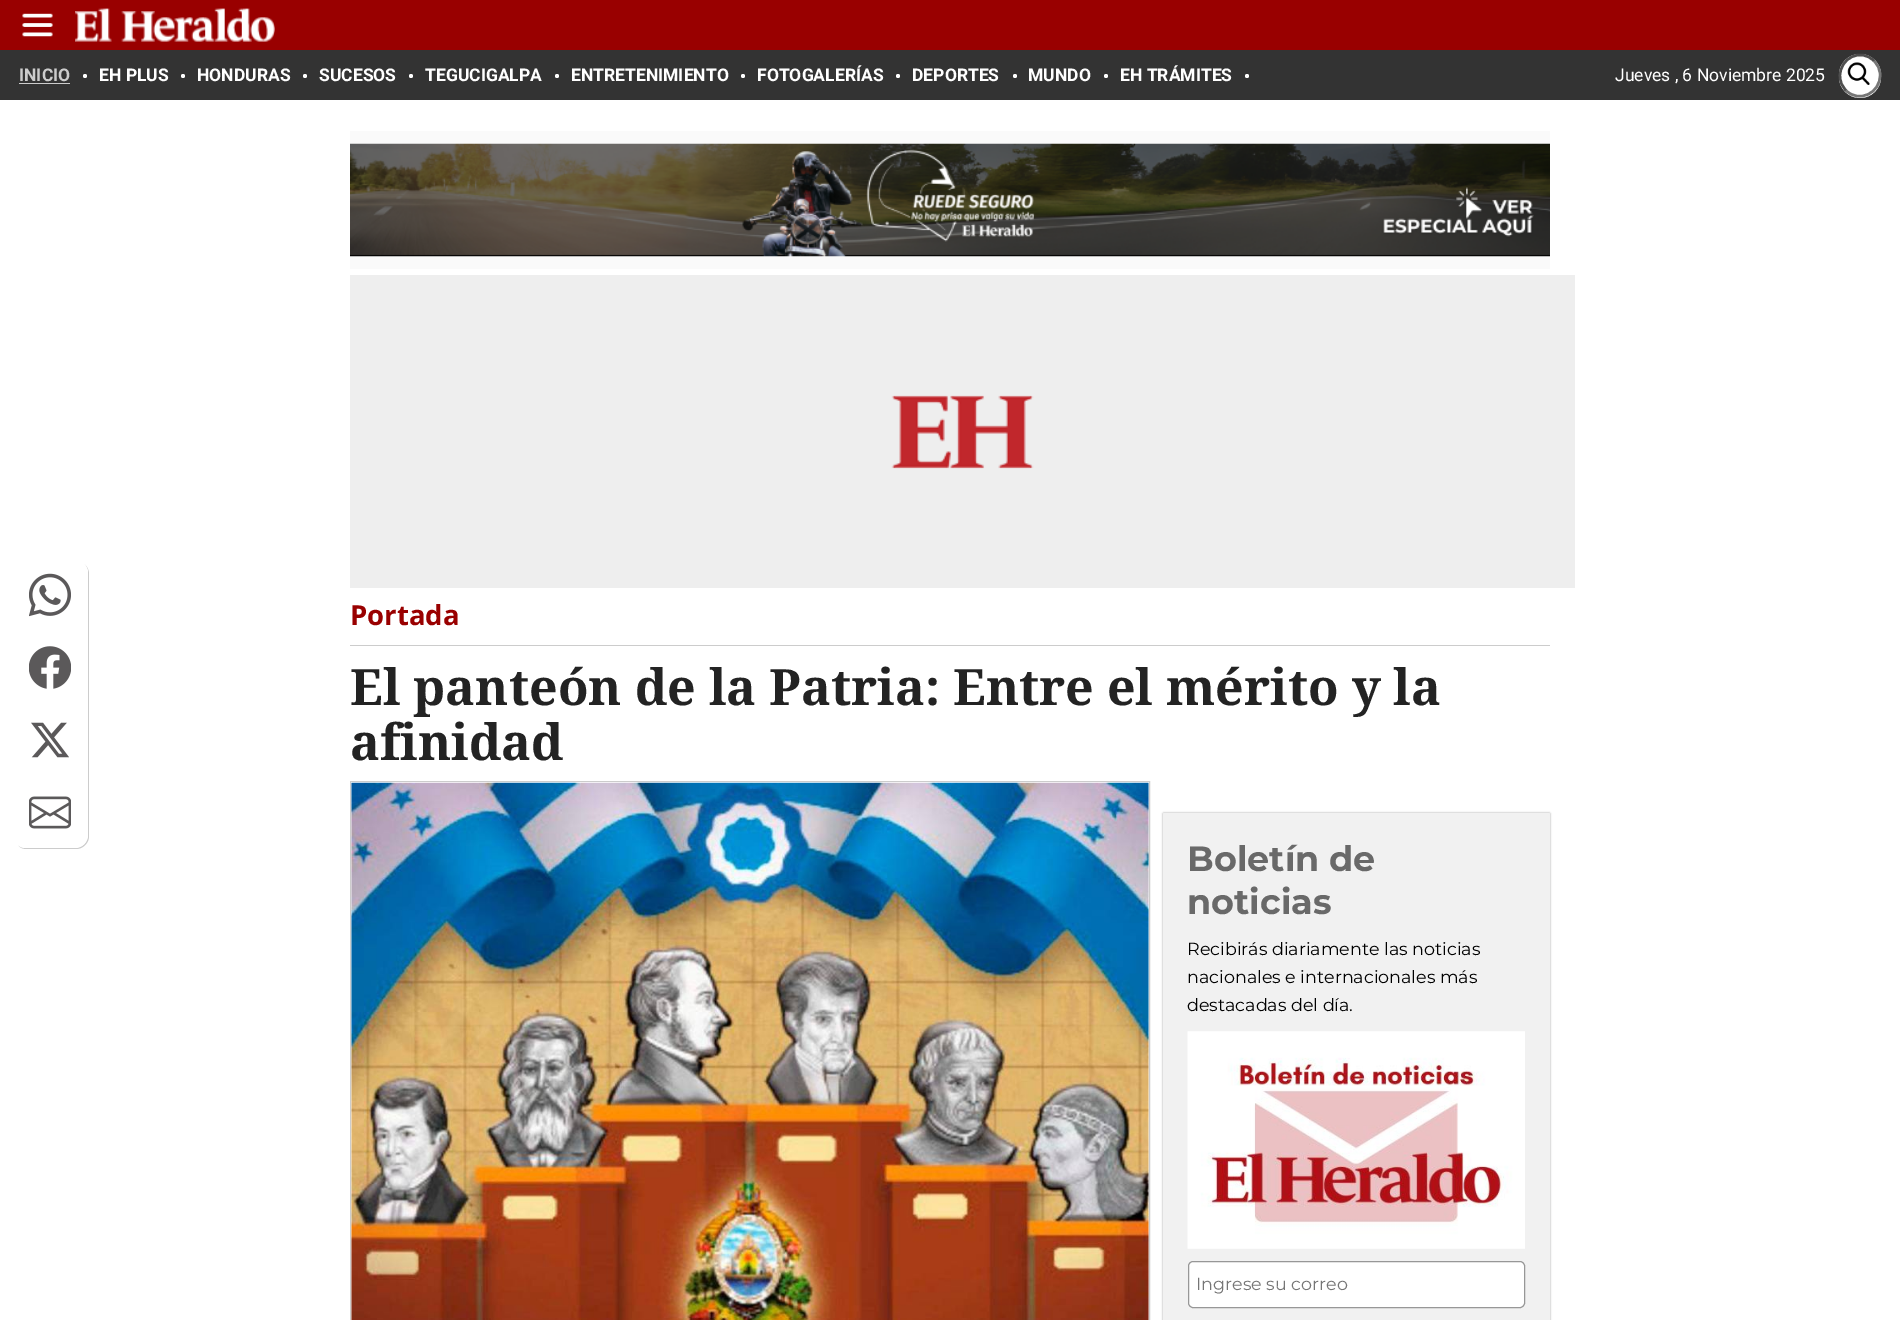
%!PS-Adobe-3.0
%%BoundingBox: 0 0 1900 1320
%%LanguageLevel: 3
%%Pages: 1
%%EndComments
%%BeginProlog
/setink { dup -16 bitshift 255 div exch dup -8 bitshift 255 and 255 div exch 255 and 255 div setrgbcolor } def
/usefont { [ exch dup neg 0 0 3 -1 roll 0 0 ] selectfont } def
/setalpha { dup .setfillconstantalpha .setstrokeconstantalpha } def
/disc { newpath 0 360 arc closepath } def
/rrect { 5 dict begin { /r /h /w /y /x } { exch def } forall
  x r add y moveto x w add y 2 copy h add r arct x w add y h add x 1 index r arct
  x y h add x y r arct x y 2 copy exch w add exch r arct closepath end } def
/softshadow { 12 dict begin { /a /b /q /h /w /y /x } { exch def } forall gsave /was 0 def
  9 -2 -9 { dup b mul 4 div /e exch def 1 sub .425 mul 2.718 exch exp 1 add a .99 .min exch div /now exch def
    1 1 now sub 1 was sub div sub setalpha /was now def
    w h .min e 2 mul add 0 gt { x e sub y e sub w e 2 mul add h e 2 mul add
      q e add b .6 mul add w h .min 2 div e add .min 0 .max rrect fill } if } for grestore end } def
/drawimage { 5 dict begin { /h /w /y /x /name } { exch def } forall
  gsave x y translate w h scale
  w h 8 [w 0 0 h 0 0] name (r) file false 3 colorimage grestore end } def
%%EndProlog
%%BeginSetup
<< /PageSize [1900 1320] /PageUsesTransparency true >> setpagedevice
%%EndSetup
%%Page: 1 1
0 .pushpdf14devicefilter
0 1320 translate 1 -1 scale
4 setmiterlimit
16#FFFFFF setink
0 0 1900 1320 rectfill
16#333333 setink
0 50 1900 50 rectfill
16#FFFFFF setink
1839 54 42 44 21 rrect fill
(img3.raw) 1847 62 23 23 drawimage
16#767676 setink
2.5 setlinewidth
1874 61 moveto 1878 64.5 1880 69.5 1880 75 curveto 1880.5 93 1859 103.5 1846 90.5 curveto stroke
16#4F4F4F setink
1846 90.5 moveto 1842 86.5 1840 81.5 1840 76.5 curveto 1839.5 58 1861 47.5 1874 61 curveto stroke
16#333333 setink
0 1 1900 50 0 3 1 softshadow
16#990000 setink
0 0 1900 50 rectfill
(img1.raw) 22 13 31 24 drawimage
(img2.raw) 75 8 200 34 drawimage
/Roboto-Bold 17.5 usefont
16#CCCCCC setink
19 81 moveto (INICIO) show
19 83 51 1 rectfill
16#FFFFFF setink
85 76 2 disc fill
99 81 moveto (EH PLUS) show
183 76 2 disc fill
197 81 moveto (HONDURAS) show
305 76 2 disc fill
319 81 moveto (SUCESOS) show
411 76 2 disc fill
425 81 moveto (TEGUCIGALPA) show
557 76 2 disc fill
571 81 moveto (ENTRETENIMIENTO) show
743 76 2 disc fill
757 81 moveto (FOTOGALERÍAS) show
898 76 2 disc fill
912 81 moveto (DEPORTES) show
1015 76 2 disc fill
1028 81 moveto (MUNDO) show
1106 76 2 disc fill
1120 81 moveto (EH TRÁMITES) show
1247 76 2 disc fill
/Roboto-Regular 17.5 usefont
1615 81 moveto (Jueves , 6 Noviembre 2025) show
16#FAFAFA setink
350 131 1200 138 rectfill
(img4.raw) 350 143 1200 114 drawimage
16#EEEEEE setink
350 275 1225 313 rectfill
(img5.raw) 891 395 143 74 drawimage
16#CCCCCC setink
350 645 1200 1 rectfill
/NotoSans-Bold 27.5 usefont
16#990000 setink
350 625 moveto (Portada) show
/NotoSerif-Bold 50 usefont
16#232323 setink
350 705 moveto (El panteón de la Patria: Entre el mérito y la) show
350 760 moveto (afinidad) show
16#CCCCCC setink
18 845 moveto 20 848 23 849 27 849 curveto 76 849 lineto 83 849 89 843 89 836 curveto 89 574 lineto 89 570 87 566 84 564 curveto 86 566 88 569 88 572 curveto 88 835 lineto 88 842 82 848 75 848 curveto 25 848 lineto 22 848 20 847 18 845 curveto closepath fill
16#FFFFFF setink
13 560 75 288 13 rrect fill
(img6.raw) 29 573 42 44 drawimage
(img7.raw) 29 646 42 43 drawimage
(img8.raw) 31 722 38 36 drawimage
(img9.raw) 29 796 42 33 drawimage
16#CCCCCC setink
1 setlinewidth
350.5 781.5 799 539 rectstroke
(img10.raw) 351 782 798 538 drawimage
16#999999 setink
1163 813 387 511 1 1 1 softshadow
16#F1F1F1 setink
1163 813 387 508 1 rrect fill
/Montserrat-Thin 35 usefont
16#696969 setink
1187 871 moveto (Boletín de) show
1187 914 moveto (noticias) show
/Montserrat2-Thin 17.5 usefont
16#000000 setink
[
    [(Recibirás diariamente las noticias) 1187 955]
    [(nacionales e internacionales más) 1187 983]
    [(destacadas del día.) 1187 1011]
] { aload pop moveto show } forall
(img11.raw) 1187 1031 338 218 drawimage
16#FFFFFF setink
1188.5 1261.5 336 46 4.5 rrect gsave fill grestore
16#979797 setink
stroke
16#757575 setink
1196 1290 moveto (Ingrese su correo) show
.poppdf14devicefilter showpage
%%EOF
